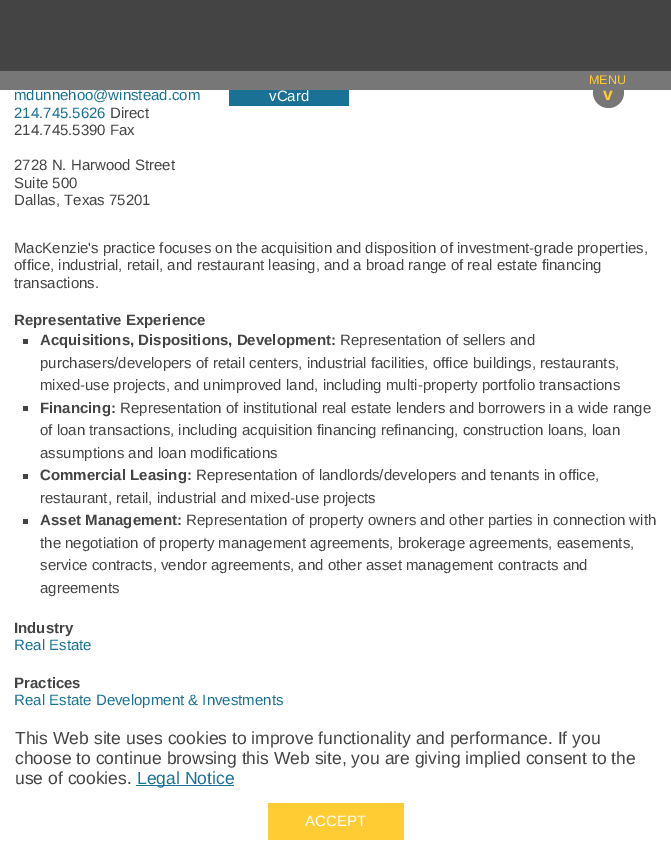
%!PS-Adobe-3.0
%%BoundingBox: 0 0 671 854
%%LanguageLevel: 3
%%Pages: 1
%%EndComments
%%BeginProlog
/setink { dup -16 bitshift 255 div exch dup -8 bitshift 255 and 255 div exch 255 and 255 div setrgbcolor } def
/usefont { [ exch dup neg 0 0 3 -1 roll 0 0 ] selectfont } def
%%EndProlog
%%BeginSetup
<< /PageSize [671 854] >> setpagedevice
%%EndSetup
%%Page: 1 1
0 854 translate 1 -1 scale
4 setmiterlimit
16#FFFFFF setink
0 0 671 854 rectfill
16#444444 setink
0 0 671 71 rectfill
/LiberationSans-Regular 15 usefont
16#197295 setink
14 100 moveto (mdunnehoo@winstead.com) show
16#777777 setink
0 71 671 19 rectfill
/LiberationSans-Regular 12.5 usefont
16#FFCC33 setink
589 84 moveto (MENU) show
16#777777 setink
593 90 moveto 624 90 lineto 624 92.5 lineto 624 101 617 108 608.5 108 curveto 600 108 593 101 593 92.5 curveto closepath fill
/LiberationSans-Bold 17.5 usefont
16#FFCC33 setink
603 100 moveto (v) show
/LiberationSans-Regular 15 usefont
16#197295 setink
14 118 moveto (214.745.5626) show
16#444444 setink
110 118 moveto (Direct) show
14 135 moveto (214.745.5390 Fax) show
16#197295 setink
229 90 120 16 rectfill
16#FFFFFF setink
269 101 moveto (vCard) show
16#444444 setink
[
    [(2728 N. Harwood Street) 14 170]
    [(Suite 500) 14 188]
    [(Dallas, Texas 75201) 14 205]
    [(MacKenzie's practice focuses on the acquisition and disposition of investment-grade properties,) 14 253]
    [(office, industrial, retail, and restaurant leasing, and a broad range of real estate financing) 14 270]
    [(transactions.) 14 288]
] { aload pop moveto show } forall
/LiberationSans-Bold 15 usefont
14 325 moveto (Representative Experience) show
23 339 5 5 rectfill
40 345 moveto (Acquisitions, Dispositions, Development:) show
/LiberationSans-Regular 15 usefont
[
    [(Representation of sellers and) 340 345]
    [(purchasers/developers of retail centers, industrial facilities, office buildings, restaurants,) 40 368]
    [(mixed-use projects, and unimproved land, including multi-property portfolio transactions) 40 390]
] { aload pop moveto show } forall
23 406 5 5 rectfill
/LiberationSans-Bold 15 usefont
40 413 moveto (Financing:) show
/LiberationSans-Regular 15 usefont
[
    [(Representation of institutional real estate lenders and borrowers in a wide range) 120 413]
    [(of loan transactions, including acquisition financing refinancing, construction loans, loan) 40 435]
    [(assumptions and loan modifications) 40 458]
] { aload pop moveto show } forall
23 474 5 5 rectfill
/LiberationSans-Bold 15 usefont
40 480 moveto (Commercial Leasing:) show
/LiberationSans-Regular 15 usefont
196 480 moveto (Representation of landlords/developers and tenants in office,) show
40 503 moveto (restaurant, retail, industrial and mixed-use projects) show
23 519 5 5 rectfill
/LiberationSans-Bold 15 usefont
40 525 moveto (Asset Management:) show
/LiberationSans-Regular 15 usefont
[
    [(Representation of property owners and other parties in connection with) 186 525]
    [(the negotiation of property management agreements, brokerage agreements, easements,) 40 548]
    [(service contracts, vendor agreements, and other asset management contracts and) 40 570]
    [(agreements) 40 593]
] { aload pop moveto show } forall
/LiberationSans-Bold 15 usefont
14 633 moveto (Industry) show
/LiberationSans-Regular 15 usefont
16#197295 setink
14 650 moveto (Real Estate) show
/LiberationSans-Bold 15 usefont
16#444444 setink
14 688 moveto (Practices) show
/LiberationSans-Regular 15 usefont
16#197295 setink
14 705 moveto (Real Estate Development & Investments) show
/LiberationSans-Regular 17.5 usefont
16#444444 setink
[
    [(This Web site uses cookies to improve functionality and performance. If you) 15 744]
    [(choose to continue browsing this Web site, you are giving implied consent to the) 15 764]
    [(use of cookies.) 15 784]
] { aload pop moveto show } forall
16#197295 setink
136 785 98 1 rectfill
137 784 moveto (Legal Notice) show
16#FFCC33 setink
268 803 136 37 rectfill
/LiberationSans-Regular 15 usefont
16#FFFFFF setink
305 826 moveto (ACCEPT) show
showpage
%%EOF
